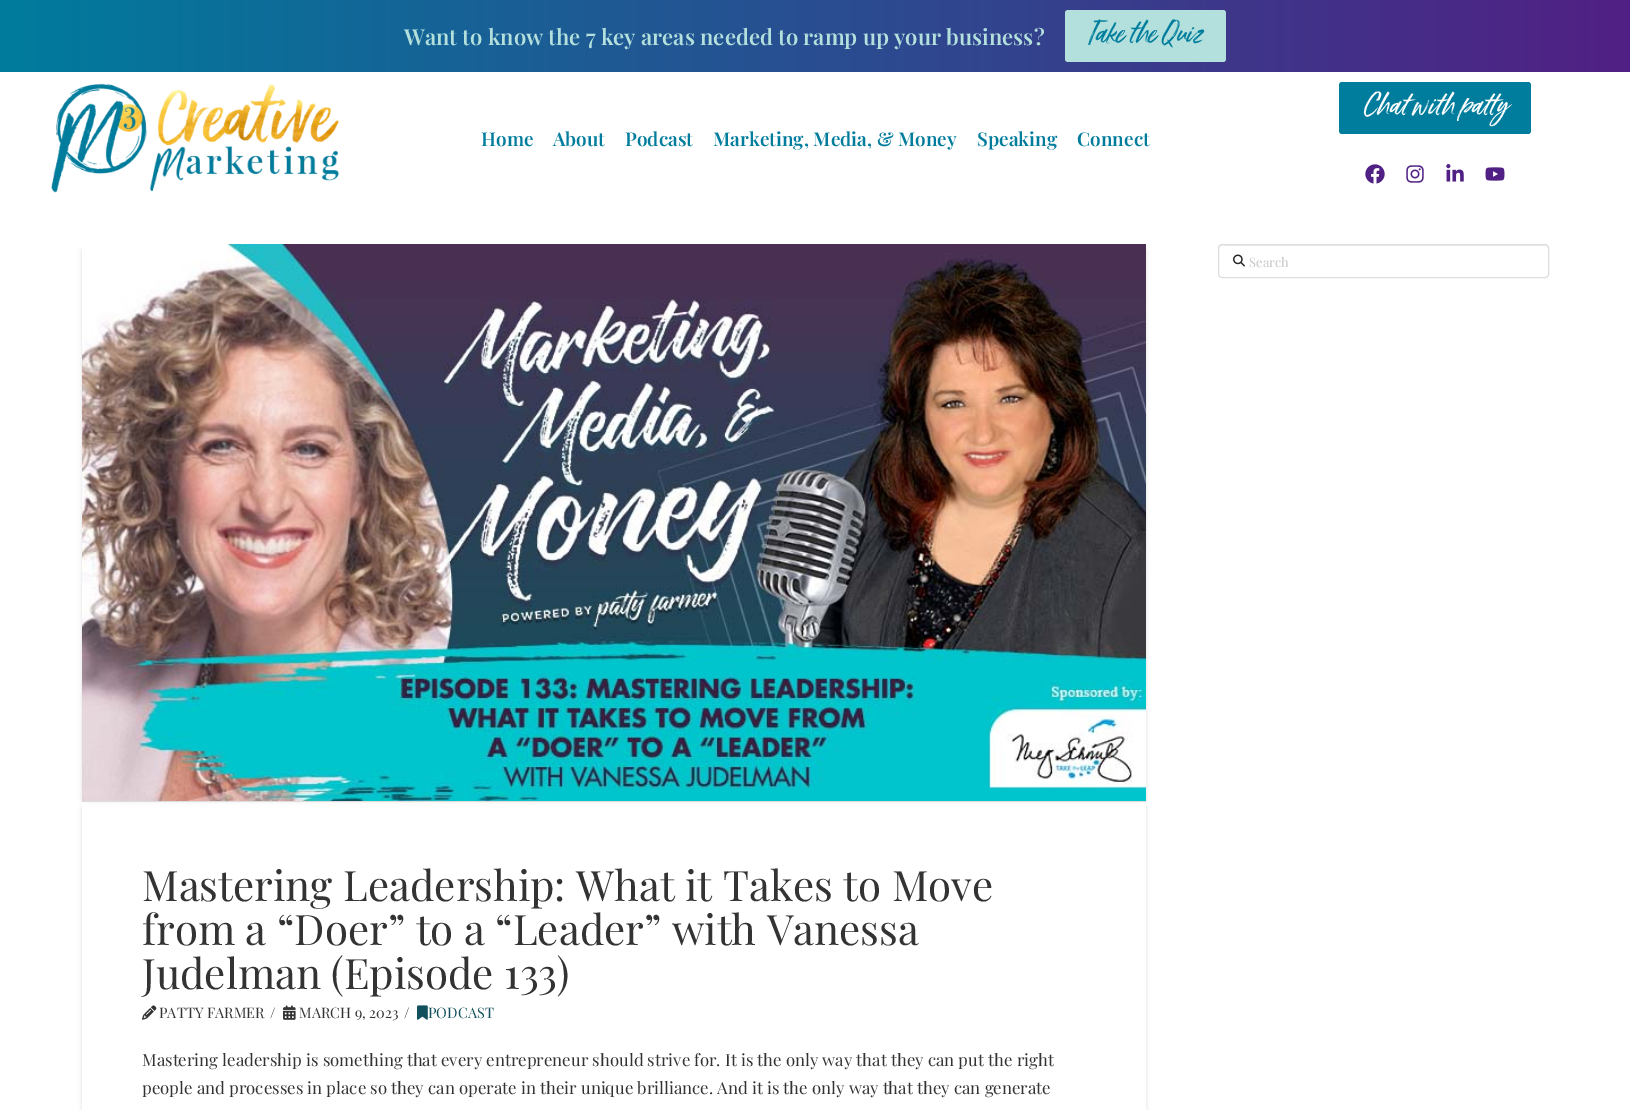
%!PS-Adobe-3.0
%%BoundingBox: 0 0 1630 1110
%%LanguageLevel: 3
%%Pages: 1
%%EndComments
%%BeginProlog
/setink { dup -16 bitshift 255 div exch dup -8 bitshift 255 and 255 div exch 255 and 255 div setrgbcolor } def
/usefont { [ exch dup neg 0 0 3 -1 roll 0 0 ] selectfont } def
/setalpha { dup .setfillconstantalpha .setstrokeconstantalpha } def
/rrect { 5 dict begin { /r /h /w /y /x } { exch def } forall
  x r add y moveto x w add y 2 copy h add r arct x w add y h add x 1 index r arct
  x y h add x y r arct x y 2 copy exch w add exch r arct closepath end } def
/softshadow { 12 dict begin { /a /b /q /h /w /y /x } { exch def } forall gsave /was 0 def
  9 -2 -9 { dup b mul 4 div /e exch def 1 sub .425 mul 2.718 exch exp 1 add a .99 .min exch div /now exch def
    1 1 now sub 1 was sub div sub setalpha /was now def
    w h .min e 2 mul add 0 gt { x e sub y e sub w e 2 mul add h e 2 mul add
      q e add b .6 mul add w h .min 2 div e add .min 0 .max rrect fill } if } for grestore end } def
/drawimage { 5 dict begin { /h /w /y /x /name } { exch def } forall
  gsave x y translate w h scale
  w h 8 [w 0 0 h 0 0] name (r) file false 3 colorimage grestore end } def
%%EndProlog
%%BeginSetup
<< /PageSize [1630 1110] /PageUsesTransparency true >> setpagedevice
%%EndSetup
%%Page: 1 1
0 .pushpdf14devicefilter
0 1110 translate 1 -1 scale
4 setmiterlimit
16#FFFFFF setink
0 0 1630 1110 rectfill
gsave 0 0 moveto 1630 0 lineto 1630 72 lineto 0 72 lineto closepath clip newpath
<< /ShadingType 2 /ColorSpace /DeviceRGB /Coords [0 36 1630 36] /Extend [true true] /Function << /FunctionType 2 /Domain [0 1] /C0 [0 0.486 0.616] /C1 [0.318 0.125 0.518] /N 1 >> >> shfill grestore
/PlayfairDisplay-SemiBold 22 usefont
16#B3E0DC setink
404 45 moveto (Want to know the 7 key areas needed to ramp up your business?) show
1065 10 161 52 3 rrect fill
/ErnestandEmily-Italic 28 usefont
16#007C9D setink
1089 41 moveto (Take the Quiz) show
(img1.raw) 51 83 288 110 drawimage
1339 82 192 52 3 rrect fill
16#FFFFFF setink
1363 113 moveto (Chat with patty) show
(img2.raw) 1365 164 20 20 drawimage
(img3.raw) 1406 165 18 18 drawimage
(img4.raw) 1446 164 18 18 drawimage
(img5.raw) 1485 167 20 14 drawimage
/PlayfairDisplay-SemiBold 19 usefont
16#007C9D setink
[
    [(Home) 481 146]
    [(About) 553 146]
    [(Podcast) 625 146]
    [(Marketing, Media, & Money) 713 146]
    [(Speaking) 977 146]
    [(Connect) 1077 146]
] { aload pop moveto show } forall
16#ECECEC setink
1222 246 moveto 1545 246 lineto 1547 246 1548 247 1548 249 curveto 1548 247 1547 245 1545 245 curveto 1222 245 lineto 1220 245 1219 247 1219 249 curveto 1219 247 1220 246 1222 246 curveto closepath fill
16#DDDDDD setink
1218.5 244.5 330 33 3.5 rrect stroke
(img6.raw) 1233 254 12 13 drawimage
/PlayfairDisplay-Regular 13 usefont
16#C5C5C5 setink
1249 267 moveto (Search) show
16#000000 setink
82 250 1056 550 0 2 0.13 softshadow
90 250 1056 550 0 2 0.13 softshadow
gsave
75 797 moveto 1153 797 lineto 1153 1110 lineto 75 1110 lineto closepath 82 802 moveto 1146 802 lineto 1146 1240 lineto 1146 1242 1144 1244 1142 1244 curveto 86 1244 lineto 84 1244 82 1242 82 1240 curveto closepath eoclip newpath
82 804 1064 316 4 2 0.13 softshadow
grestore
16#DDDDDD setink
82 801 1064 1 rectfill
(img7.raw) 82 244 1064 557 drawimage
/PlayfairDisplay-Regular 42 usefont
16#333333 setink
[
    [(Mastering Leadership: What it Takes to Move) 142 901]
    [(from a “Doer” to a “Leader” with Vanessa) 142 945]
    [(Judelman \(Episode 133\)) 142 989]
] { aload pop moveto show } forall
(img8.raw) 142 1005 15 15 drawimage
/PlayfairDisplay-Regular 14.5 usefont
159 1018 moveto (PATTY FARMER) show
270 1018 moveto (/) show
(img9.raw) 283 1005 13 15 drawimage
299 1018 moveto (MARCH 9, 2023) show
404 1018 moveto (/) show
(img10.raw) 417 1005 11 15 drawimage
16#11505C setink
428 1018 moveto (PODCAST) show
/PlayfairDisplay-Regular 16.8 usefont
16#333333 setink
142 1066 moveto (Mastering leadership is something that every entrepreneur should strive for. It is the only way that they can put the right) show
142 1094 moveto (people and processes in place so they can operate in their unique brilliance. And it is the only way that they can generate) show
.poppdf14devicefilter showpage
%%EOF
